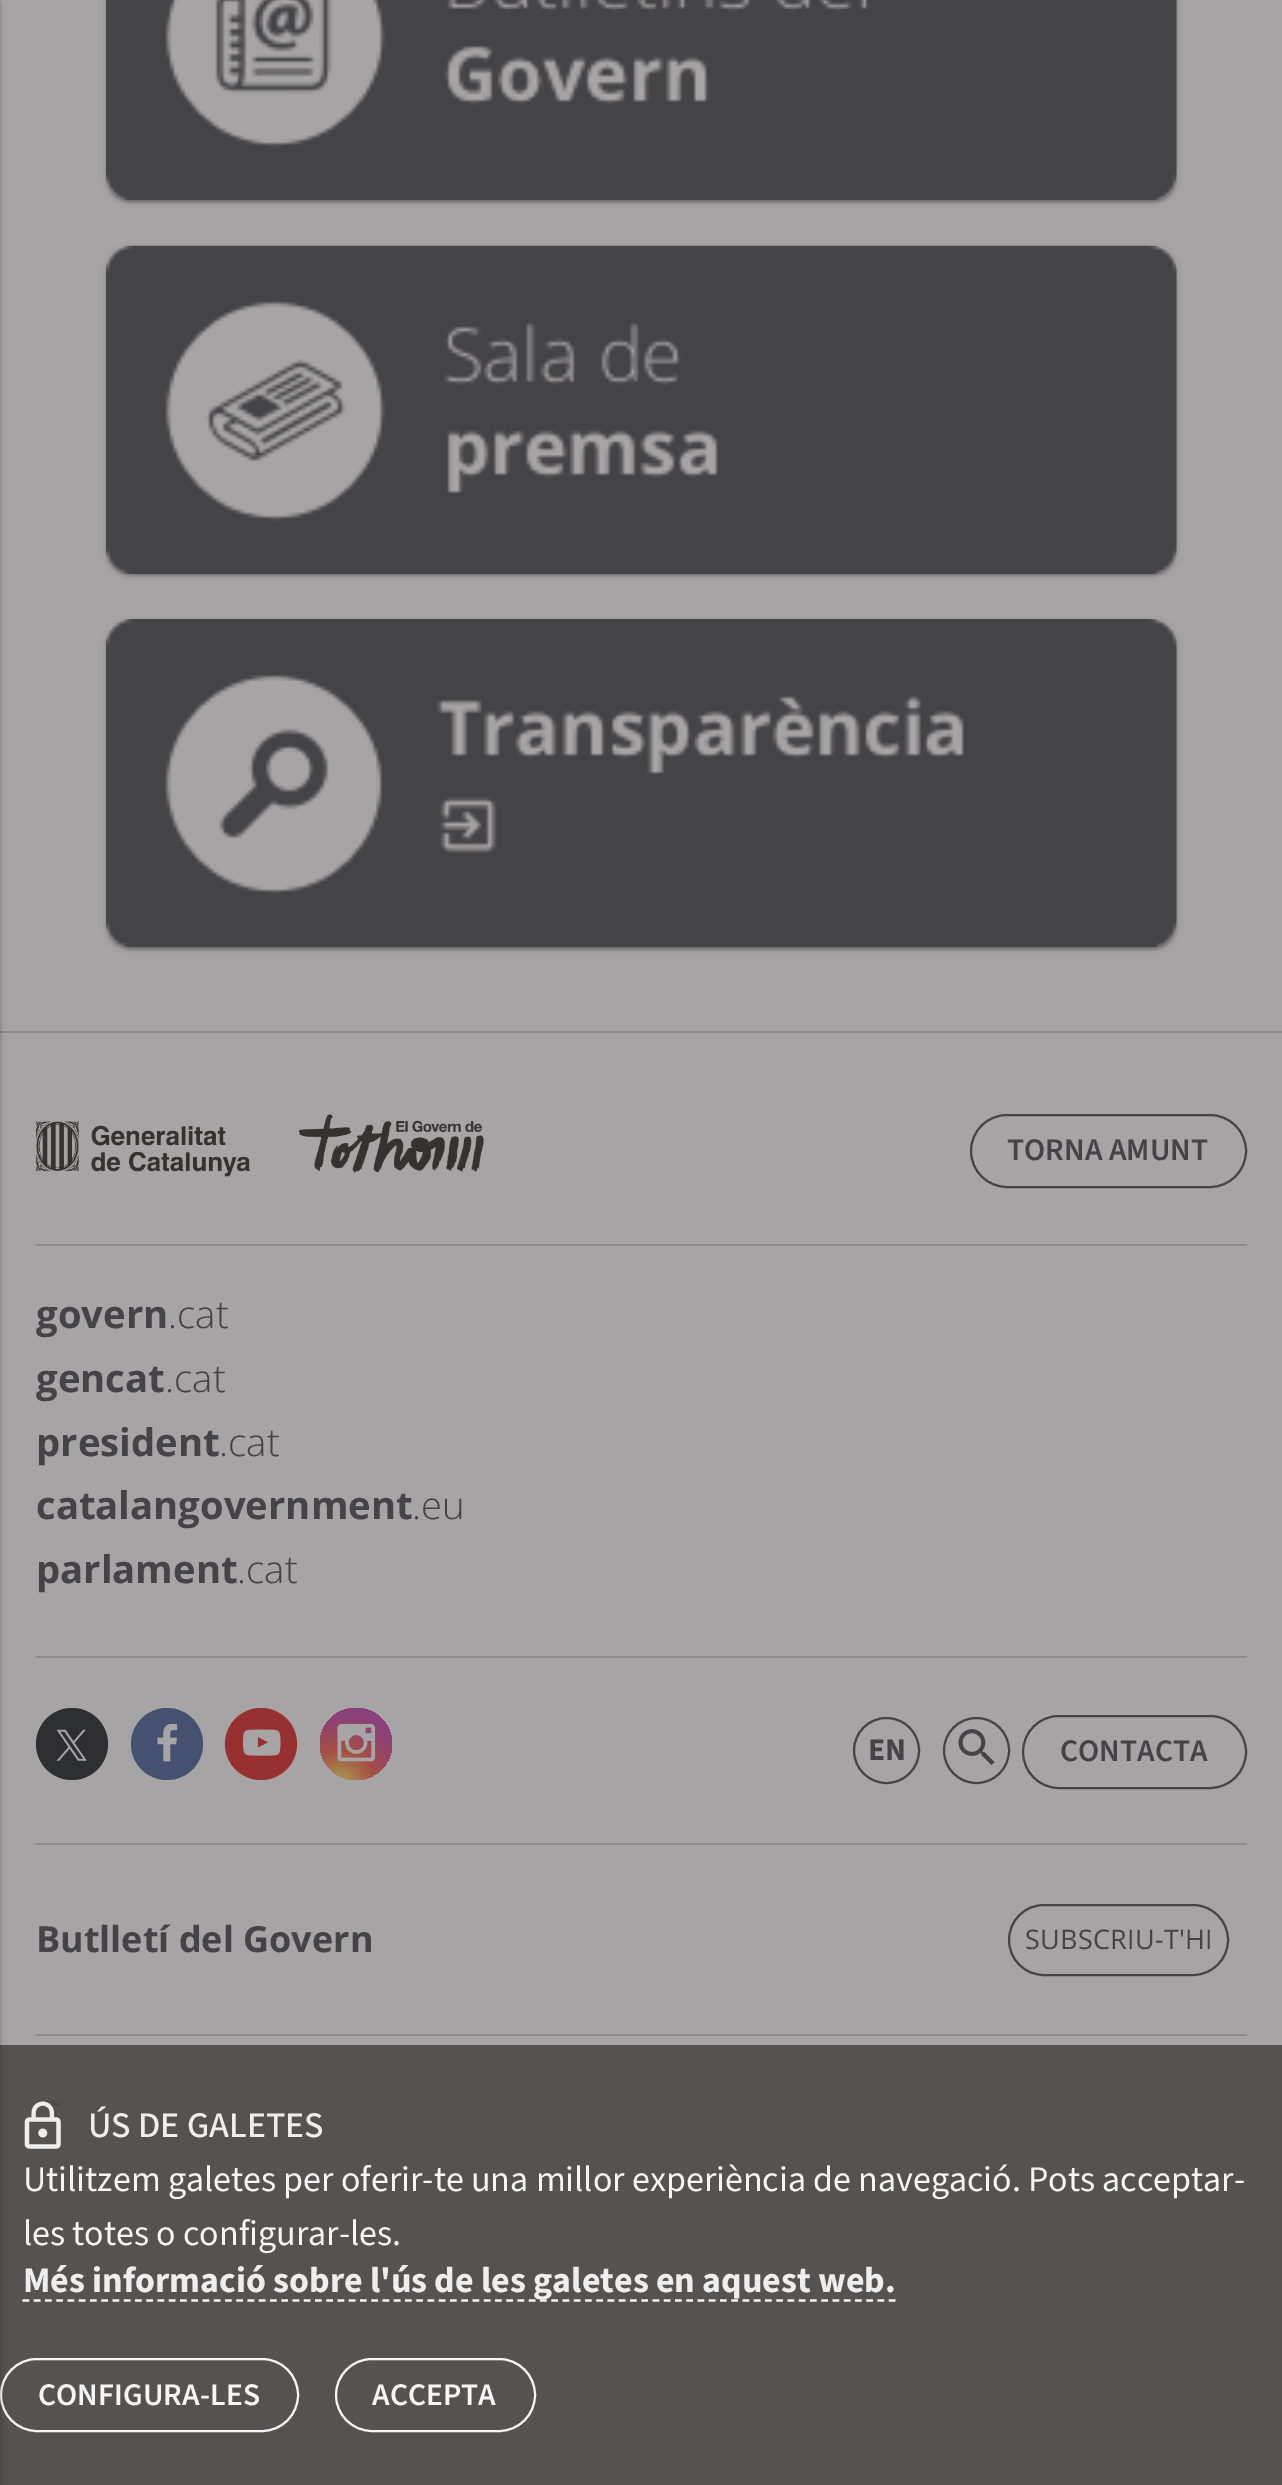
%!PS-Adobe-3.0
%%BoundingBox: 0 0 1282 2485
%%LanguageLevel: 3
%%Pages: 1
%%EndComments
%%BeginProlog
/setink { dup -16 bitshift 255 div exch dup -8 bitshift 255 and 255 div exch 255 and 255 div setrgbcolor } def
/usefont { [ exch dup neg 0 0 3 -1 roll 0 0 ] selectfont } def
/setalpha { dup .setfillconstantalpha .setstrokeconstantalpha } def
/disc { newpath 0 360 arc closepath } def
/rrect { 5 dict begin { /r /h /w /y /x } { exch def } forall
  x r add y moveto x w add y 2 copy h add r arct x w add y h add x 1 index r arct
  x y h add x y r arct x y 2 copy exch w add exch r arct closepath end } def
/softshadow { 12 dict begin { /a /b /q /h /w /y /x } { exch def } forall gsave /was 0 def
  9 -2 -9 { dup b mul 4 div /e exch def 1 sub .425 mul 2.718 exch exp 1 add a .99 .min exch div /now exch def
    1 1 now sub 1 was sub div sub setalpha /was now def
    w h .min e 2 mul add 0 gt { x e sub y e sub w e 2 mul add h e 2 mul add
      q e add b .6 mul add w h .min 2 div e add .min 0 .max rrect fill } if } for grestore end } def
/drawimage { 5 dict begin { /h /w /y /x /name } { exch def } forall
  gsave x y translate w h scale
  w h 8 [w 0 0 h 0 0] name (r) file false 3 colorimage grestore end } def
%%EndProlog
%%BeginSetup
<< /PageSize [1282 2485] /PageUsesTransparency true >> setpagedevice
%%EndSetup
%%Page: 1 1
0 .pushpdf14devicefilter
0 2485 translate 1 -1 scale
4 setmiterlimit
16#A6A4A4 setink
0 0 1282 2485 rectfill
[
    [0 2045 1282 439 16#555252]
    [0 1031 1282 2 16#8D8C8C]
    [0 2484 1282 1 16#535050]
] { aload pop setink rectfill } forall
16#F6F6F6 setink
2 setlinewidth
1 2359 297 72 36 rrect stroke
16#000000 setink
-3 2 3 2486 0 1 0.14 softshadow
-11 2 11 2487 0 3.5 0.2 softshadow
gsave
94 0 moveto 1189 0 lineto 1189 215 lineto 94 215 lineto closepath 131 -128 moveto 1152 -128 lineto 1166 -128 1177 -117 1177 -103 curveto 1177 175 lineto 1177 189 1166 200 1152 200 curveto 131 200 lineto 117 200 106 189 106 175 curveto 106 -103 lineto 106 -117 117 -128 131 -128 curveto closepath eoclip newpath
16#262525 setink
106 -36 1071 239 25 3.5 0.2 softshadow
grestore
gsave
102 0 moveto 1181 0 lineto 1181 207 lineto 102 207 lineto closepath 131 -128 moveto 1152 -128 lineto 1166 -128 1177 -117 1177 -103 curveto 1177 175 lineto 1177 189 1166 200 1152 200 curveto 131 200 lineto 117 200 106 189 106 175 curveto 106 -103 lineto 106 -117 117 -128 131 -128 curveto closepath eoclip newpath
16#262525 setink
106 -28 1071 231 25 1 0.14 softshadow
grestore
gsave
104 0 moveto 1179 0 lineto 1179 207 lineto 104 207 lineto closepath 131 -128 moveto 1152 -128 lineto 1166 -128 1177 -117 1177 -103 curveto 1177 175 lineto 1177 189 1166 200 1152 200 curveto 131 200 lineto 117 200 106 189 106 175 curveto 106 -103 lineto 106 -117 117 -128 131 -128 curveto closepath eoclip newpath
16#262525 setink
108 -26 1067 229 23 1 0.12 softshadow
grestore
(img1.raw) 105 0 1072 201 drawimage
gsave
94 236 moveto 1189 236 lineto 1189 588 lineto 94 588 lineto closepath 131 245 moveto 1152 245 lineto 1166 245 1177 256 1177 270 curveto 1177 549 lineto 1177 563 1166 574 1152 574 curveto 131 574 lineto 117 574 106 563 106 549 curveto 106 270 lineto 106 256 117 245 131 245 curveto closepath eoclip newpath
16#262525 setink
106 248 1071 328 25 3.5 0.2 softshadow
grestore
gsave
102 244 moveto 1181 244 lineto 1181 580 lineto 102 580 lineto closepath 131 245 moveto 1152 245 lineto 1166 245 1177 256 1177 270 curveto 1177 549 lineto 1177 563 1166 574 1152 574 curveto 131 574 lineto 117 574 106 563 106 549 curveto 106 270 lineto 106 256 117 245 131 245 curveto closepath eoclip newpath
16#262525 setink
106 248 1071 328 25 1 0.14 softshadow
grestore
gsave
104 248 moveto 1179 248 lineto 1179 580 lineto 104 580 lineto closepath 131 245 moveto 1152 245 lineto 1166 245 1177 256 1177 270 curveto 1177 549 lineto 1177 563 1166 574 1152 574 curveto 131 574 lineto 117 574 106 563 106 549 curveto 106 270 lineto 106 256 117 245 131 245 curveto closepath eoclip newpath
16#262525 setink
108 252 1067 324 23 1 0.12 softshadow
grestore
(img2.raw) 105 245 1072 329 drawimage
gsave
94 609 moveto 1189 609 lineto 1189 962 lineto 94 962 lineto closepath 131 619 moveto 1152 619 lineto 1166 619 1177 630 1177 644 curveto 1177 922 lineto 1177 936 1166 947 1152 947 curveto 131 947 lineto 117 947 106 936 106 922 curveto 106 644 lineto 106 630 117 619 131 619 curveto closepath eoclip newpath
16#262525 setink
106 621 1071 329 25 3.5 0.2 softshadow
grestore
gsave
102 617 moveto 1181 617 lineto 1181 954 lineto 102 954 lineto closepath 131 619 moveto 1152 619 lineto 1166 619 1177 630 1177 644 curveto 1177 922 lineto 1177 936 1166 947 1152 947 curveto 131 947 lineto 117 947 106 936 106 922 curveto 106 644 lineto 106 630 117 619 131 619 curveto closepath eoclip newpath
16#262525 setink
106 621 1071 329 25 1 0.14 softshadow
grestore
gsave
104 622 moveto 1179 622 lineto 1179 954 lineto 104 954 lineto closepath 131 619 moveto 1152 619 lineto 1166 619 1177 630 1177 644 curveto 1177 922 lineto 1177 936 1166 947 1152 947 curveto 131 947 lineto 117 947 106 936 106 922 curveto 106 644 lineto 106 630 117 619 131 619 curveto closepath eoclip newpath
16#262525 setink
108 626 1067 324 23 1 0.12 softshadow
grestore
(img3.raw) 105 619 1072 329 drawimage
16#8D8C8C setink
36 1244 1211 2 rectfill
(img4.raw) 36 1114 448 63 drawimage
16#444345 setink
971 1115 275 72 36 rrect stroke
/SourceSans3-SemiBold 31.5 usefont
1007 1160 moveto (TORNA AMUNT) show
16#8D8C8C setink
36 1656 1211 2 rectfill
/OpenSans-Bold 38.25 usefont
16#444345 setink
36 1328 moveto (govern) show
/OpenSans-Light 38.25 usefont
168 1328 moveto (.cat) show
/OpenSans-Bold 38.25 usefont
36 1392 moveto (gencat) show
/OpenSans-Light 38.25 usefont
165 1392 moveto (.cat) show
/OpenSans-Bold 38.25 usefont
36 1456 moveto (president) show
/OpenSans-Light 38.25 usefont
219 1456 moveto (.cat) show
/OpenSans-Bold 38.25 usefont
36 1519 moveto (catalangovernment) show
/OpenSans-Light 38.25 usefont
412 1519 moveto (.eu) show
/OpenSans-Bold 38.25 usefont
36 1583 moveto (parlament) show
/OpenSans-Light 38.25 usefont
237 1583 moveto (.cat) show
16#8D8C8C setink
36 1843 1211 2 rectfill
16#2E2F31 setink
72 1744 36 disc fill
(img5.raw) 56 1729 31 32 drawimage
16#445171 setink
167 1744 36 disc fill
(img6.raw) 157 1723 21 39 drawimage
16#973030 setink
261 1744 36 disc fill
(img7.raw) 243 1729 38 27 drawimage
gsave 356 1744 36 disc clip newpath 339 1786 translate 94 94 scale
<< /ShadingType 3 /ColorSpace /DeviceRGB /Coords [0 0 0 0 0 1] /Extend [true true] /Function << /FunctionType 3 /Domain [0 1] /Functions [<< /FunctionType 2 /Domain [0 1] /C0 [0.651 0.576 0.31] /C1 [0.651 0.576 0.31] /N 1 >> << /FunctionType 2 /Domain [0 1] /C0 [0.651 0.576 0.31] /C1 [0.651 0.31 0.267] /N 1 >> << /FunctionType 2 /Domain [0 1] /C0 [0.651 0.31 0.267] /C1 [0.541 0.251 0.478] /N 1 >> << /FunctionType 2 /Domain [0 1] /C0 [0.541 0.251 0.478] /C1 [0.541 0.251 0.478] /N 1 >>] /Bounds [0.08 0.38 0.76] /Encode [0 1 0 1 0 1 0 1] >> >> shfill grestore
(img8.raw) 337 1723 39 39 drawimage
16#444345 setink
886.5 1750.5 32.5 disc stroke
/SourceSans3-Bold 31.5 usefont
868 1760 moveto (EN) show
976.5 1750.5 32.5 disc stroke
(img9.raw) 958 1729 37 37 drawimage
1023 1716 223 72 36 rrect stroke
/SourceSans3-SemiBold 31.5 usefont
1060 1761 moveto (CONTACTA) show
16#8D8C8C setink
36 2034 1211 2 rectfill
/OpenSans-Bold 36 usefont
16#444345 setink
36 1952 moveto (Butlletí del Govern) show
1009 1905 219 70 35 rrect stroke
/OpenSans-Regular 27 usefont
1025 1949 moveto 0.25 0 (SUBSCRIU-T'HI) ashow
(img10.raw) 24 2101 37 48 drawimage
/SourceSans3-Medium 36 usefont
16#EEEEEE setink
88 2137 moveto (ÚS DE GALETES) show
/SourceSans3-Regular 36 usefont
16#F6F6F6 setink
23 2191 moveto (Utilitzem galetes per oferir-te una millor experiència de navegació. Pots acceptar-) show
23 2245 moveto (les totes o configurar-les.) show
2.2 setlinewidth
[6.75 4.5] 0 setdash
22.5 2300.5 moveto 895.5 2300.5 lineto stroke
/SourceSans3-Bold 36 usefont
16#EEEEEE setink
23 2292 moveto (Més informació sobre l'ús de les galetes en aquest web.) show
/SourceSans3-SemiBold 31.5 usefont
16#F6F6F6 setink
38 2405 moveto (CONFIGURA-LES) show
2 setlinewidth
[] 0 setdash
336 2359 199 72 36 rrect stroke
372 2405 moveto (ACCEPTA) show
.poppdf14devicefilter showpage
%%EOF
